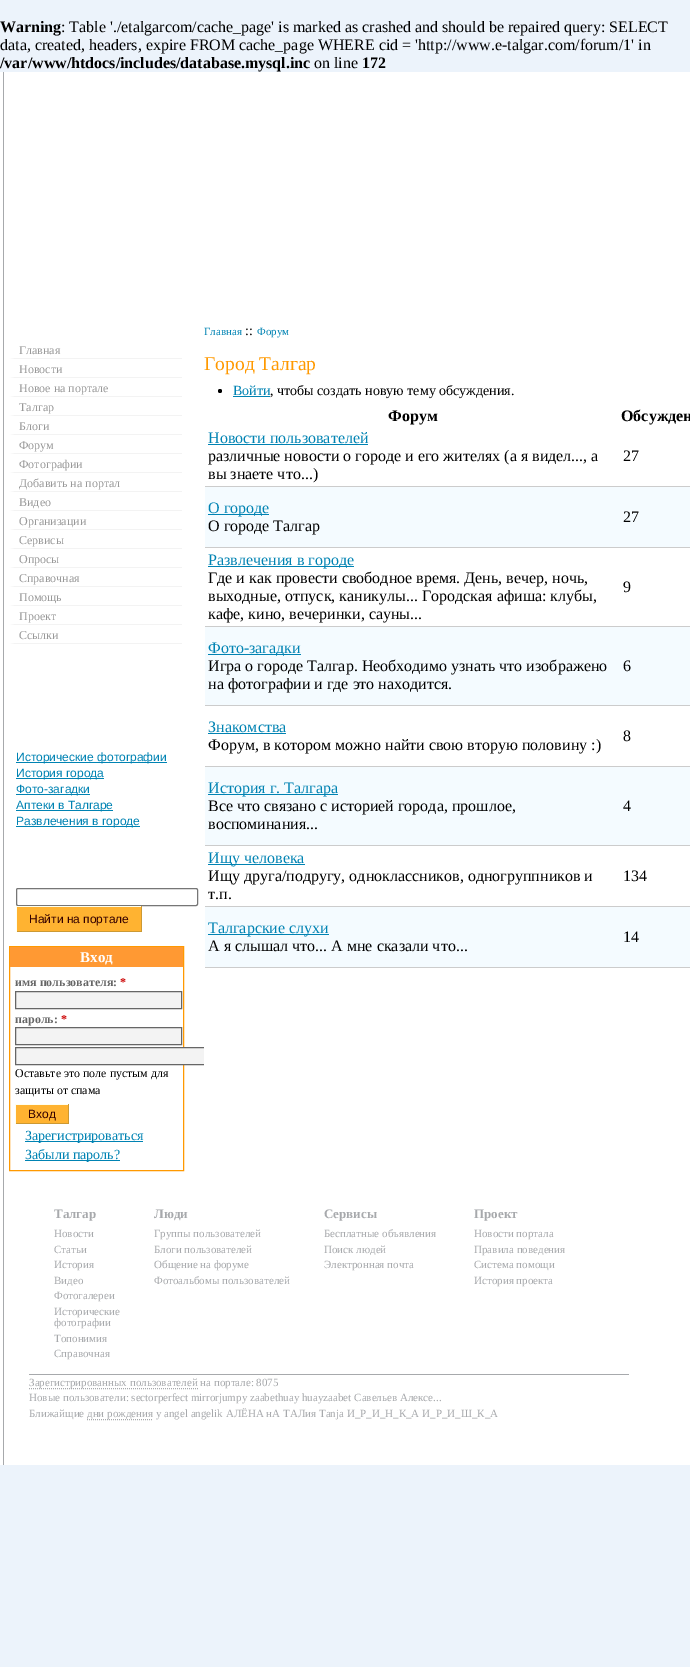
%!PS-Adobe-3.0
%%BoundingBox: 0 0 690 1667
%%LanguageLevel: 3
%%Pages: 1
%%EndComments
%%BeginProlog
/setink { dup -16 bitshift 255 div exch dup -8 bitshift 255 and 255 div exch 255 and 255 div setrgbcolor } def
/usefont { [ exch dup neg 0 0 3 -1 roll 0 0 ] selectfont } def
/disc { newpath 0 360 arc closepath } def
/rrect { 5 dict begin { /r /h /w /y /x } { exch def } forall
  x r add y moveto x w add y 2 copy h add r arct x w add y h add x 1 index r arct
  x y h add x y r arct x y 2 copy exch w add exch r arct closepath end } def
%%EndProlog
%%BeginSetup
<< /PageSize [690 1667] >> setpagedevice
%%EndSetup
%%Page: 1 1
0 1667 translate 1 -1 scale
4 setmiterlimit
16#ECF3FB setink
0 0 690 1667 rectfill
/LiberationSerif-Bold 16 usefont
16#000000 setink
0 32 moveto (Warning) show
/LiberationSerif-Regular 16 usefont
61 32 moveto (: Table './etalgarcom/cache_page' is marked as crashed and should be repaired query: SELECT) show
0 50 moveto (data, created, headers, expire FROM cache_page WHERE cid = 'http://www.e-talgar.com/forum/1' in) show
/LiberationSerif-Bold 16 usefont
0 68 moveto (/var/www/htdocs/includes/database.mysql.inc) show
/LiberationSerif-Regular 16 usefont
314 68 moveto (on line) show
/LiberationSerif-Bold 16 usefont
362 68 moveto (172) show
16#FFFFFF setink
0 72 690 1393 rectfill
16#A7A9AC setink
3 72 1 1393 rectfill
16#F3F3F3 setink
182 359 moveto 8 359 lineto 14 358 lineto 182 358 lineto closepath fill
16#FFFFFF setink
8 359 moveto 8 341 lineto 14 342 lineto 14 358 lineto closepath fill
/LiberationSerif-Regular 12 usefont
16#999999 setink
19 354 moveto (Главная) show
16#F3F3F3 setink
182 378 moveto 8 378 lineto 14 377 lineto 182 377 lineto closepath fill
16#FFFFFF setink
8 378 moveto 8 360 lineto 14 361 lineto 14 377 lineto closepath fill
16#999999 setink
19 373 moveto (Новости) show
16#F3F3F3 setink
182 397 moveto 8 397 lineto 14 396 lineto 182 396 lineto closepath fill
16#FFFFFF setink
8 397 moveto 8 379 lineto 14 380 lineto 14 396 lineto closepath fill
16#999999 setink
19 392 moveto (Новое на портале) show
16#F3F3F3 setink
182 416 moveto 8 416 lineto 14 415 lineto 182 415 lineto closepath fill
16#FFFFFF setink
8 416 moveto 8 398 lineto 14 399 lineto 14 415 lineto closepath fill
16#999999 setink
19 411 moveto (Талгар) show
16#F3F3F3 setink
182 435 moveto 8 435 lineto 14 434 lineto 182 434 lineto closepath fill
16#FFFFFF setink
8 435 moveto 8 417 lineto 14 418 lineto 14 434 lineto closepath fill
16#999999 setink
19 430 moveto (Блоги) show
16#F3F3F3 setink
182 454 moveto 8 454 lineto 14 453 lineto 182 453 lineto closepath fill
16#FFFFFF setink
8 454 moveto 8 436 lineto 14 437 lineto 14 453 lineto closepath fill
16#999999 setink
19 449 moveto (Форум) show
16#F3F3F3 setink
182 473 moveto 8 473 lineto 14 472 lineto 182 472 lineto closepath fill
16#FFFFFF setink
8 473 moveto 8 455 lineto 14 456 lineto 14 472 lineto closepath fill
16#999999 setink
19 468 moveto (Фотографии) show
16#F3F3F3 setink
182 492 moveto 8 492 lineto 14 491 lineto 182 491 lineto closepath fill
16#FFFFFF setink
8 492 moveto 8 474 lineto 14 475 lineto 14 491 lineto closepath fill
16#999999 setink
19 487 moveto (Добавить на портал) show
16#F3F3F3 setink
182 511 moveto 8 511 lineto 14 510 lineto 182 510 lineto closepath fill
16#FFFFFF setink
8 511 moveto 8 493 lineto 14 494 lineto 14 510 lineto closepath fill
16#999999 setink
19 506 moveto (Видео) show
16#F3F3F3 setink
182 530 moveto 8 530 lineto 14 529 lineto 182 529 lineto closepath fill
16#FFFFFF setink
8 530 moveto 8 512 lineto 14 513 lineto 14 529 lineto closepath fill
16#999999 setink
19 525 moveto (Организации) show
16#F3F3F3 setink
182 549 moveto 8 549 lineto 14 548 lineto 182 548 lineto closepath fill
16#FFFFFF setink
8 549 moveto 8 531 lineto 14 532 lineto 14 548 lineto closepath fill
16#999999 setink
19 544 moveto (Сервисы) show
16#F3F3F3 setink
182 568 moveto 8 568 lineto 14 567 lineto 182 567 lineto closepath fill
16#FFFFFF setink
8 568 moveto 8 550 lineto 14 551 lineto 14 567 lineto closepath fill
16#999999 setink
19 563 moveto (Опросы) show
16#F3F3F3 setink
182 587 moveto 8 587 lineto 14 586 lineto 182 586 lineto closepath fill
16#FFFFFF setink
8 587 moveto 8 569 lineto 14 570 lineto 14 586 lineto closepath fill
16#999999 setink
19 582 moveto (Справочная) show
16#F3F3F3 setink
182 606 moveto 8 606 lineto 14 605 lineto 182 605 lineto closepath fill
16#FFFFFF setink
8 606 moveto 8 588 lineto 14 589 lineto 14 605 lineto closepath fill
16#999999 setink
19 601 moveto (Помощь) show
16#F3F3F3 setink
182 625 moveto 8 625 lineto 14 624 lineto 182 624 lineto closepath fill
16#FFFFFF setink
8 625 moveto 8 607 lineto 14 608 lineto 14 624 lineto closepath fill
16#999999 setink
19 620 moveto (Проект) show
16#F3F3F3 setink
182 644 moveto 8 644 lineto 14 643 lineto 182 643 lineto closepath fill
16#FFFFFF setink
8 644 moveto 8 626 lineto 14 627 lineto 14 643 lineto closepath fill
16#999999 setink
19 639 moveto (Ссылки) show
16#0083B3 setink
16 762 151 1 rectfill
/LiberationSans-Regular 12 usefont
16 761 moveto (Исторические фотографии) show
16 778 88 1 rectfill
16 777 moveto (История города) show
16 794 74 1 rectfill
16 793 moveto (Фото-загадки) show
16 810 97 1 rectfill
16 809 moveto (Аптеки в Талгаре) show
16 826 124 1 rectfill
16 825 moveto (Развлечения в городе) show
16#767676 setink
16.5 888.5 181 17 1.5 rrect stroke
[
    [17 907 124 24 16#FFB331]
    [16 906 126 1 16#FFFFEE]
    [141 906 1 26 16#CC9933]
    [16 931 126 1 16#CC9933]
    [16 906 1 26 16#FFFFEE]
] { aload pop setink rectfill } forall
16#330000 setink
29 923 moveto (Найти на портале) show
16#FF9900 setink
9.5 946.5 174 224 rectstroke
16#FF9933 setink
10 947 173 20 rectfill
/LiberationSerif-Bold 15 usefont
16#FFFFFF setink
80 962 moveto (Вход) show
/LiberationSerif-Bold 12 usefont
16#666666 setink
15 986 moveto (имя пользователя:) show
16#CC0000 setink
120 986 moveto (*) show
16#F3F3F3 setink
15.5 991.5 moveto 181.5 991.5 lineto 181.5 1008.5 lineto 15.5 1008.5 lineto closepath gsave fill grestore
16#666666 setink
stroke
15 1023 moveto (пароль:) show
16#CC0000 setink
61 1023 moveto (*) show
16#F3F3F3 setink
15.5 1027.5 moveto 181.5 1027.5 lineto 181.5 1044.5 lineto 15.5 1044.5 lineto closepath gsave fill grestore
16#666666 setink
stroke
16#F3F3F3 setink
16 1048 188 16 rectfill
gsave
4 307 200 878 rectclip
16#666666 setink
15.5 1047.5 210 17 rectstroke
grestore
/LiberationSerif-Regular 11.9 usefont
16#000000 setink
15 1077 moveto (Оставьте это поле пустым для) show
15 1094 moveto (защиты от спама) show
[
    [16 1105 52 18 16#FFB331]
    [15 1104 54 1 16#FFFFEE]
    [68 1104 1 20 16#CC9933]
    [15 1123 54 1 16#CC9933]
    [15 1104 1 20 16#FFFFEE]
] { aload pop setink rectfill } forall
/LiberationSans-Regular 12 usefont
16#330000 setink
28 1118 moveto (Вход) show
16#0083B3 setink
25 1141 118 1 rectfill
/LiberationSerif-Regular 14 usefont
25 1140 moveto (Зарегистрироваться) show
25 1160 95 1 rectfill
25 1159 moveto (Забыли пароль?) show
/LiberationSerif-Regular 11 usefont
204 335 moveto (Главная) show
/LiberationSerif-Regular 14 usefont
16#000000 setink
245 335 moveto (::) show
/LiberationSerif-Regular 11 usefont
16#0083B3 setink
257 335 moveto (Форум) show
/LiberationSerif-Regular 19.5 usefont
16#FF9900 setink
204 370 moveto (Город Талгар) show
16#000000 setink
220 391 2 disc fill
/LiberationSerif-Regular 14 usefont
16#0083B3 setink
233 395 moveto (Войти) show
233 396 37 1 rectfill
16#000000 setink
270 395 moveto (, чтобы создать новую тему обсуждения.) show
/LiberationSerif-Bold 16 usefont
388 421 moveto (Форум) show
621 421 moveto (Обсужден) show
16#CCCCCC setink
205 486 485 1 rectfill
/LiberationSerif-Regular 16 usefont
16#0083B3 setink
208 443 moveto (Новости пользователей) show
208 444 160 1 rectfill
16#000000 setink
[
    [(различные новости о городе и его жителях \(а я видел..., а) 208 461]
    [(вы знаете что...\)) 208 479]
    [(27) 623 461]
] { aload pop moveto show } forall
[
    [205 547 485 1 16#CCCCCC]
    [205 487 485 60 16#F4FBFF]
    [208 514 61 1 16#0083B3]
] { aload pop setink rectfill } forall
208 513 moveto (О городе) show
16#000000 setink
208 531 moveto (О городе Талгар) show
623 522 moveto (27) show
16#CCCCCC setink
205 626 485 1 rectfill
16#0083B3 setink
208 566 146 1 rectfill
208 565 moveto (Развлечения в городе) show
16#000000 setink
[
    [(Где и как провести свободное время. День, вечер, ночь,) 208 583]
    [(выходные, отпуск, каникулы... Городская афиша: клубы,) 208 601]
    [(кафе, кино, вечеринки, сауны...) 208 619]
    [(9) 623 592]
] { aload pop moveto show } forall
[
    [205 705 485 1 16#CCCCCC]
    [205 627 485 78 16#F4FBFF]
    [208 654 93 1 16#0083B3]
] { aload pop setink rectfill } forall
208 653 moveto (Фото-загадки) show
16#000000 setink
[
    [(Игра о городе Талгар. Необходимо узнать что изображено) 208 671]
    [(на фотографии и где это находится.) 208 689]
    [(6) 623 671]
] { aload pop moveto show } forall
16#CCCCCC setink
205 766 485 1 rectfill
16#0083B3 setink
208 732 moveto (Знакомства) show
208 733 78 1 rectfill
16#000000 setink
208 750 moveto (Форум, в котором можно найти свою вторую половину :\)) show
623 741 moveto (8) show
[
    [205 845 485 1 16#CCCCCC]
    [205 767 485 78 16#F4FBFF]
    [208 794 130 1 16#0083B3]
] { aload pop setink rectfill } forall
208 793 moveto (История г. Талгара) show
16#000000 setink
[
    [(Все что связано с историей города, прошлое,) 208 811]
    [(воспоминания...) 208 829]
    [(4) 623 811]
] { aload pop moveto show } forall
16#CCCCCC setink
205 906 485 1 rectfill
16#0083B3 setink
208 864 97 1 rectfill
208 863 moveto (Ищу человека) show
16#000000 setink
[
    [(Ищу друга/подругу, одноклассников, одногруппников и) 208 881]
    [(т.п.) 208 899]
    [(134) 623 881]
] { aload pop moveto show } forall
[
    [205 967 485 1 16#CCCCCC]
    [205 907 485 60 16#F4FBFF]
    [208 934 121 1 16#0083B3]
] { aload pop setink rectfill } forall
208 933 moveto (Талгарские слухи) show
16#000000 setink
208 951 moveto (А я слышал что... А мне сказали что...) show
623 942 moveto (14) show
/LiberationSerif-Bold 13 usefont
16#A7A9AC setink
54 1218 moveto (Талгар) show
/LiberationSerif-Regular 11 usefont
[
    [(Новости) 54 1237]
    [(Статьи) 54 1253]
    [(История) 54 1268]
    [(Видео) 54 1284]
    [(Фотогалереи) 54 1299]
    [(Исторические) 54 1315]
    [(фотографии) 54 1326]
    [(Топонимия) 54 1342]
    [(Справочная) 54 1357]
] { aload pop moveto show } forall
/LiberationSerif-Bold 13 usefont
154 1218 moveto (Люди) show
/LiberationSerif-Regular 11 usefont
[
    [(Группы пользователей) 154 1237]
    [(Блоги пользователей) 154 1253]
    [(Общение на форуме) 154 1268]
    [(Фотоальбомы пользователей) 154 1284]
] { aload pop moveto show } forall
/LiberationSerif-Bold 13 usefont
324 1218 moveto (Сервисы) show
/LiberationSerif-Regular 11 usefont
[
    [(Бесплатные объявления) 324 1237]
    [(Поиск людей) 324 1253]
    [(Электронная почта) 324 1268]
] { aload pop moveto show } forall
/LiberationSerif-Bold 13 usefont
474 1218 moveto (Проект) show
/LiberationSerif-Regular 11 usefont
[
    [(Новости портала) 474 1237]
    [(Правила поведения) 474 1253]
    [(Система помощи) 474 1268]
    [(История проекта) 474 1284]
] { aload pop moveto show } forall
29 1374 600 1 rectfill
[1 1] 0 setdash
29 1388.5 moveto 198 1388.5 lineto stroke
[
    [(Зарегистрированных пользователей на портале: 8075) 29 1386]
    [(Новые пользователи: sectorperfect mirrorjumpy zaabethuay huayzaabet Савельев Алексе...) 29 1401]
    [(Ближайщие) 29 1417]
] { aload pop moveto show } forall
87 1419.5 moveto 153 1419.5 lineto stroke
87 1417 moveto (дни рождения у angel angelik АЛЁНА нА ТАЛия Tanja И_Р_И_Н_К_А И_Р_И_Ш_К_А) show
showpage
%%EOF
